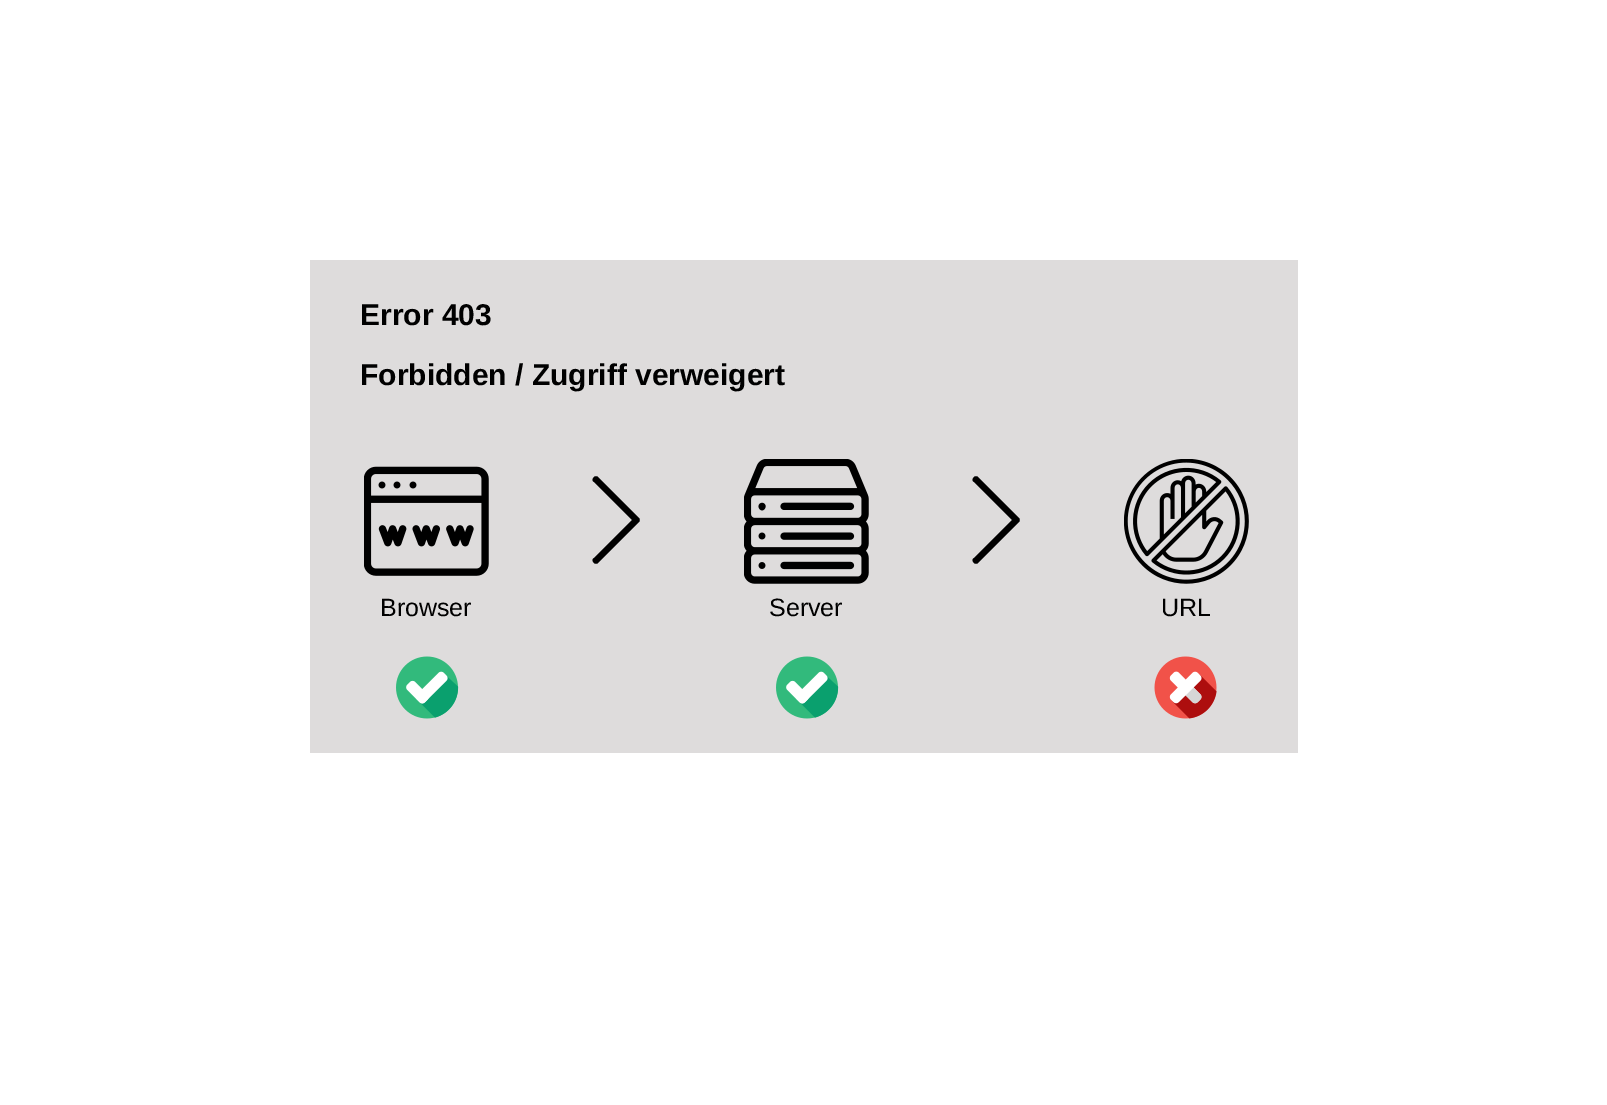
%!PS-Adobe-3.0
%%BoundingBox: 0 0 1607 1105
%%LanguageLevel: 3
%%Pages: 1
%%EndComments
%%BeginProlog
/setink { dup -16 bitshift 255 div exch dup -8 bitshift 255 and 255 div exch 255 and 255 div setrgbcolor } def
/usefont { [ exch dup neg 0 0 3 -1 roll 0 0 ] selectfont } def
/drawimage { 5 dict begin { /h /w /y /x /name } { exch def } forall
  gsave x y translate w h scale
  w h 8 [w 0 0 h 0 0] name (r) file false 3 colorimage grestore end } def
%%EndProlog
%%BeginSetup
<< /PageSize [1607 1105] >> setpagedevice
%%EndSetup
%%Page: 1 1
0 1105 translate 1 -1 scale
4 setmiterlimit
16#FFFFFF setink
0 0 1607 1105 rectfill
16#DEDCDC setink
310 260 988 493 rectfill
/LiberationSans-Bold 30 usefont
16#000000 setink
360 325 moveto (Error 403) show
360 385 moveto (Forbidden / Zugriff verweigert) show
(img1.raw) 364 466 125 110 drawimage
639 518 moveto 598 477 lineto 597 476 595 476 594 477 curveto 592 479 592 481 594 482 curveto 632 520 lineto 594 558 lineto 592 559 592 561 594 563 curveto 595 564 597 564 598 563 curveto 639 522 lineto 640 521 640 519 639 518 curveto closepath fill
(img2.raw) 744 459 125 125 drawimage
1019 518 moveto 978 477 lineto 977 476 975 476 974 477 curveto 972 479 972 481 974 482 curveto 1012 520 lineto 974 558 lineto 972 559 972 561 974 563 curveto 975 564 977 564 978 563 curveto 1019 522 lineto 1020 521 1020 519 1019 518 curveto closepath fill
(img3.raw) 1124 459 125 125 drawimage
/LiberationSans-Regular 25 usefont
[
    [(Browser) 380 616]
    [(Server) 769 616]
    [(URL) 1161 616]
] { aload pop moveto show } forall
(img4.raw) 396 656 63 63 drawimage
(img4.raw) 776 656 63 63 drawimage
(img5.raw) 1154 656 63 63 drawimage
showpage
%%EOF
